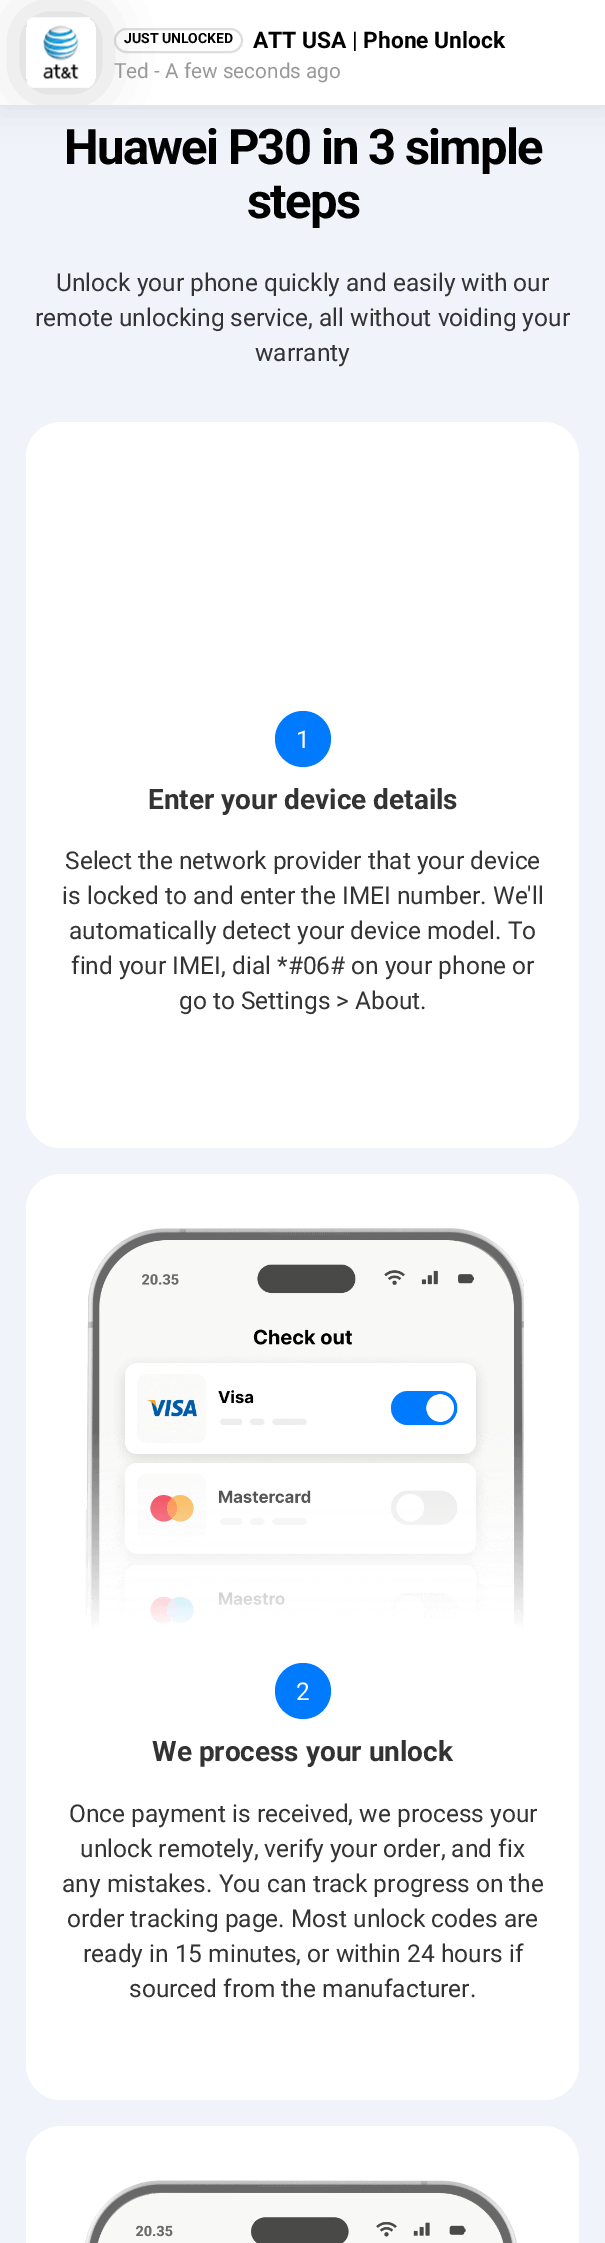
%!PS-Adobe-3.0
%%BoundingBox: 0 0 605 2243
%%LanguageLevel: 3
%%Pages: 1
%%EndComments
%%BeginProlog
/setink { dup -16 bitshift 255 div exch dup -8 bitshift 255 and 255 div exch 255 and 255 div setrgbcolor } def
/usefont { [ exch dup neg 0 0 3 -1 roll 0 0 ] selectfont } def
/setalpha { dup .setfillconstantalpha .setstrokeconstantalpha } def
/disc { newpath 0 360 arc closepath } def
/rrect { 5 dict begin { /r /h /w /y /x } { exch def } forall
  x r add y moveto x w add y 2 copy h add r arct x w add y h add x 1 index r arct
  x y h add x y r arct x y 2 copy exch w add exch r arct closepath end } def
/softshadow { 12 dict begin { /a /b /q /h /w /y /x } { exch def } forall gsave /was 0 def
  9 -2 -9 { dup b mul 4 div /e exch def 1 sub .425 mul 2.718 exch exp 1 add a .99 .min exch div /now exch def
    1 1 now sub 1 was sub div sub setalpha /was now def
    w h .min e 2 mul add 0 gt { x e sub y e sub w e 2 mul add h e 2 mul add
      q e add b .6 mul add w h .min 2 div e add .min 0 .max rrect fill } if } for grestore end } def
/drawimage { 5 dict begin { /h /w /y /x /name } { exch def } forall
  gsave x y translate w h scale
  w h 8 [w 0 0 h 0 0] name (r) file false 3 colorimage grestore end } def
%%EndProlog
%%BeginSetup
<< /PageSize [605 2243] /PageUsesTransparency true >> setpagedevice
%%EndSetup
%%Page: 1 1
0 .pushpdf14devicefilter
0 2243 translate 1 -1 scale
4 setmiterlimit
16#F1F3FB setink
0 0 605 2243 rectfill
16#000000 setink
0 0 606 105 0 17.5 0.1 softshadow
16#FFFFFF setink
0 0 605 105 rectfill
16#DEDEDE setink
2 setlinewidth
115 29 127 23 11.5 rrect stroke
gsave
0 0 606 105 rectclip
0 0 moveto 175 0 lineto 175 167 lineto 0 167 lineto closepath 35 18 moveto 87 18 lineto 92 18 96 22 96 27 curveto 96 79 lineto 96 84 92 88 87 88 curveto 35 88 lineto 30 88 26 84 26 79 curveto 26 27 lineto 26 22 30 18 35 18 curveto closepath eoclip newpath
16#000000 setink
26 18 70 70 9 26 0.2 softshadow
grestore
(img1.raw) 27 17 63 71 drawimage
/Roboto-Bold 14 usefont
16#000000 setink
124 43 moveto (JUST UNLOCKED) show
/Roboto-Bold 22.75 usefont
253 48 moveto (ATT USA | Phone Unlock) show
/Roboto-Regular 20.75 usefont
16#999999 setink
114 78 moveto (Ted - A few seconds ago) show
/Roboto-Bold 49 usefont
16#000000 setink
64 164 moveto -1.75 0 (Huawei P30 in 3 simple) ashow
247 218 moveto -1.75 0 (steps) ashow
/Roboto-Regular 24.5 usefont
16#333333 setink
[
    [(Unlock your phone quickly and easily with our) 56 291]
    [(remote unlocking service, all without voiding your) 35 326]
    [(warranty) 255 361]
] { aload pop moveto show } forall
16#FFFFFF setink
26 422 553 726 35 rrect fill
16#007AFF setink
303 739 28 disc fill
16#FFFFFF setink
296 748 moveto (1) show
/Roboto-Bold 28 usefont
16#333333 setink
148 809 moveto (Enter your device details) show
/Roboto-Regular 24.5 usefont
[
    [(Select the network provider that your device) 65 869]
    [(is locked to and enter the IMEI number. We'll) 62 904]
    [(automatically detect your device model. To) 69 939]
    [(find your IMEI, dial *#06# on your phone or) 71 974]
    [(go to Settings > About.) 179 1009]
] { aload pop moveto show } forall
16#FFFFFF setink
26 1174 553 926 35 rrect fill
(img2.raw) 85 1228 439 403 drawimage
16#007AFF setink
303 1691 28 disc fill
16#FFFFFF setink
296 1700 moveto (2) show
/Roboto-Bold 28 usefont
16#333333 setink
152 1761 moveto (We process your unlock) show
/Roboto-Regular 24.5 usefont
[
    [(Once payment is received, we process your) 69 1822]
    [(unlock remotely, verify your order, and fix) 80 1857]
    [(any mistakes. You can track progress on the) 62 1892]
    [(order tracking page. Most unlock codes are) 67 1927]
    [(ready in 15 minutes, or within 24 hours if) 83 1962]
    [(sourced from the manufacturer.) 129 1997]
] { aload pop moveto show } forall
16#FFFFFF setink
26 2126 553 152 35 rrect fill
(img3.raw) 85 2180 432 63 drawimage
.poppdf14devicefilter showpage
%%EOF
